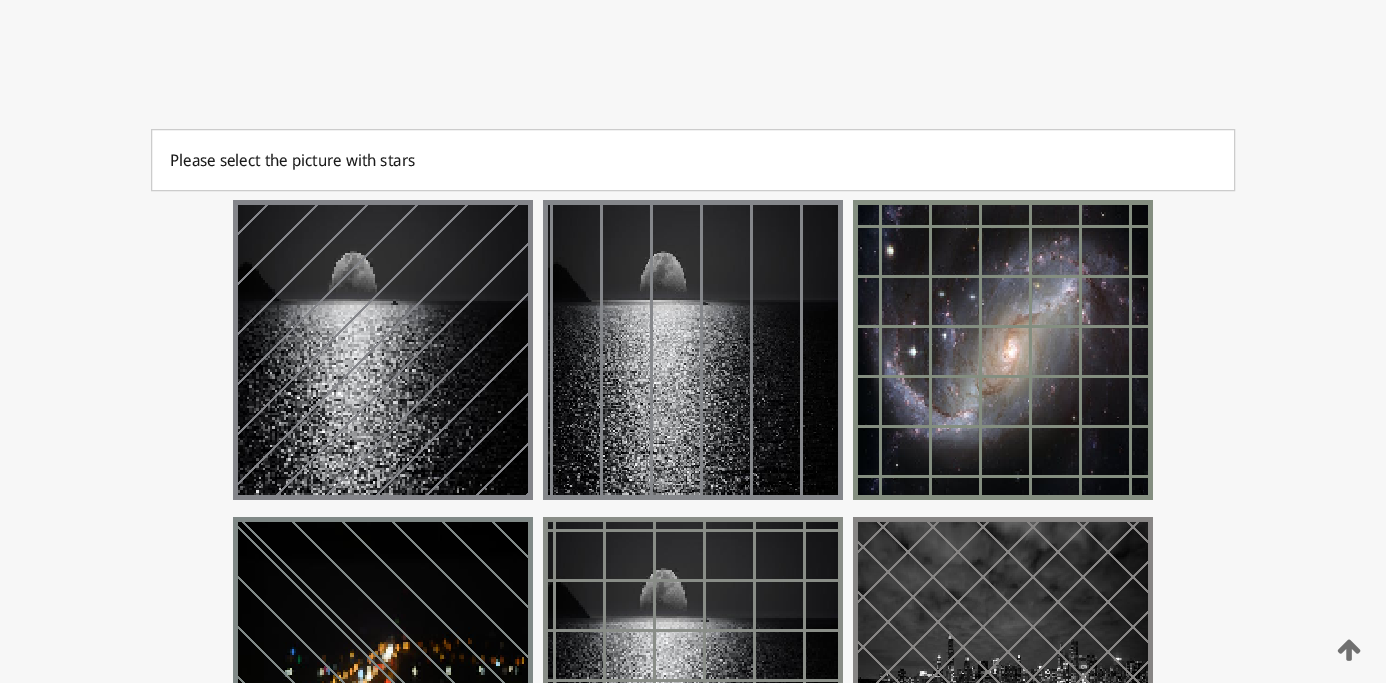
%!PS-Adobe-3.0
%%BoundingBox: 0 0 1386 683
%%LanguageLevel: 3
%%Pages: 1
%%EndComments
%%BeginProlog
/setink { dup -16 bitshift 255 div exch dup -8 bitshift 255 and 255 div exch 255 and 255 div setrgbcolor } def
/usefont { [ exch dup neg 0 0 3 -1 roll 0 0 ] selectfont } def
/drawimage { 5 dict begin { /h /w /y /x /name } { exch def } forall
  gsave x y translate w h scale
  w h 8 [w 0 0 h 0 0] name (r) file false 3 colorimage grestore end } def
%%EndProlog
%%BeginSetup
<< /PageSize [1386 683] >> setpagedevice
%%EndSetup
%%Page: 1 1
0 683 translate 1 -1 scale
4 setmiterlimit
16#F7F7F7 setink
0 0 1386 683 rectfill
16#FFFFFF setink
151.5 129.5 moveto 1234.5 129.5 lineto 1234.5 190.5 lineto 151.5 190.5 lineto closepath gsave fill grestore
16#CCCCCC setink
stroke
/NotoSansDisplay-Regular 16 usefont
16#1A1A1A setink
170 166 moveto (Please select the picture with stars) show
(img1.raw) 233 200 300 300 drawimage
(img2.raw) 543 200 300 300 drawimage
(img3.raw) 853 200 300 300 drawimage
(img4.raw) 233 517 300 166 drawimage
(img5.raw) 543 517 300 166 drawimage
(img6.raw) 853 517 300 166 drawimage
(img7.raw) 1337 639 24 22 drawimage
showpage
%%EOF
